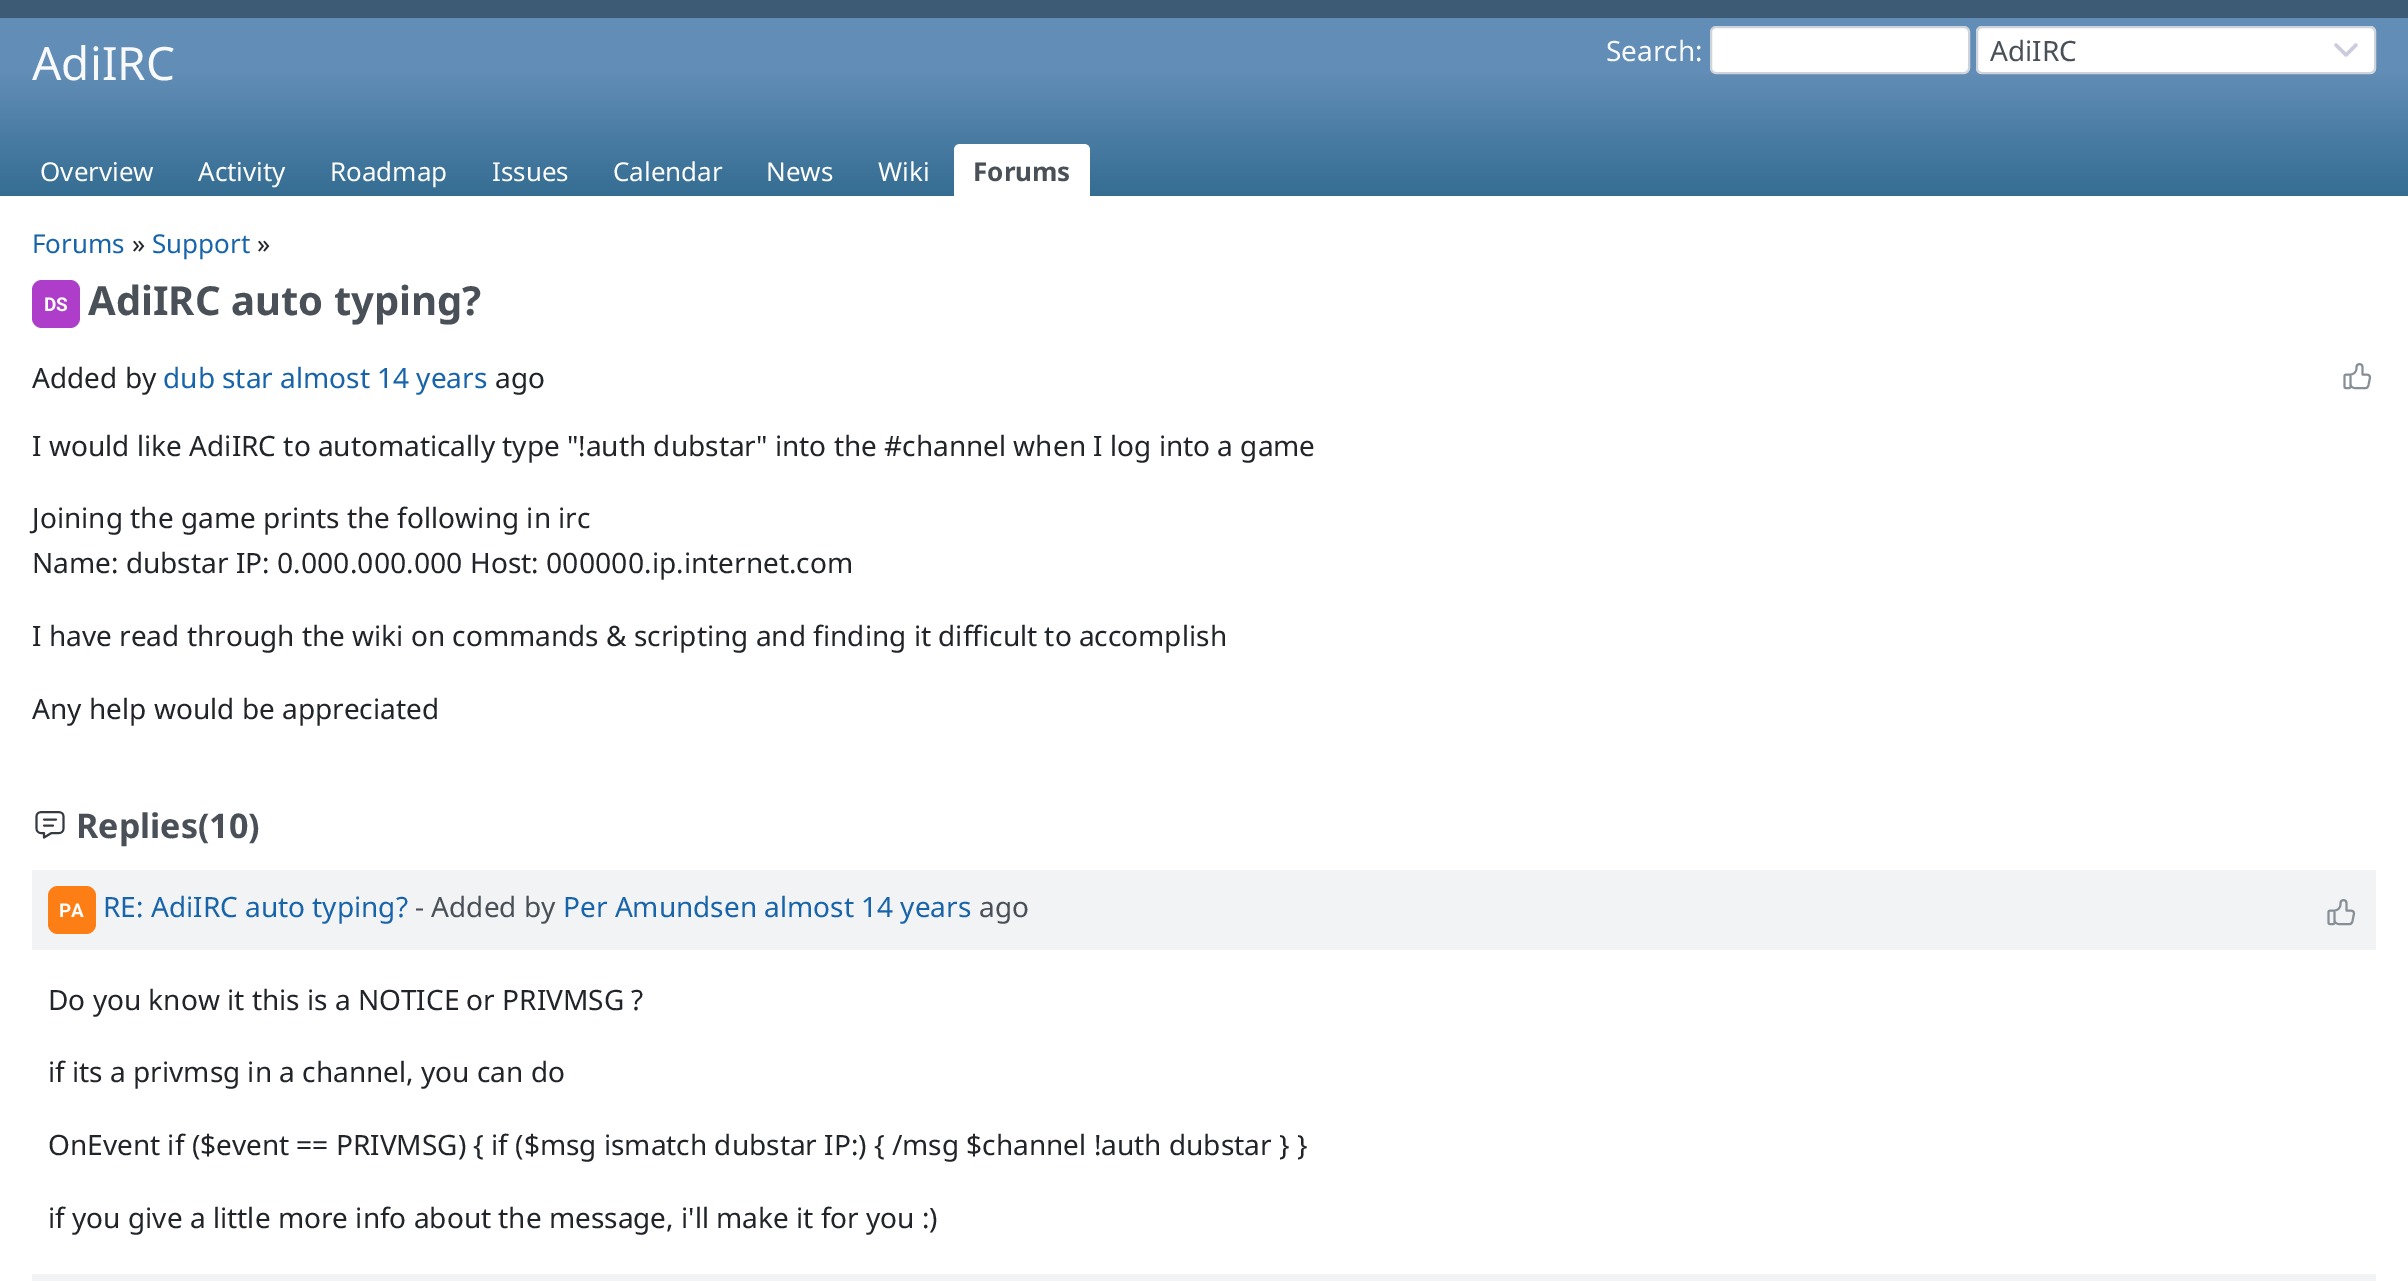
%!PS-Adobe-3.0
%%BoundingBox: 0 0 2408 1281
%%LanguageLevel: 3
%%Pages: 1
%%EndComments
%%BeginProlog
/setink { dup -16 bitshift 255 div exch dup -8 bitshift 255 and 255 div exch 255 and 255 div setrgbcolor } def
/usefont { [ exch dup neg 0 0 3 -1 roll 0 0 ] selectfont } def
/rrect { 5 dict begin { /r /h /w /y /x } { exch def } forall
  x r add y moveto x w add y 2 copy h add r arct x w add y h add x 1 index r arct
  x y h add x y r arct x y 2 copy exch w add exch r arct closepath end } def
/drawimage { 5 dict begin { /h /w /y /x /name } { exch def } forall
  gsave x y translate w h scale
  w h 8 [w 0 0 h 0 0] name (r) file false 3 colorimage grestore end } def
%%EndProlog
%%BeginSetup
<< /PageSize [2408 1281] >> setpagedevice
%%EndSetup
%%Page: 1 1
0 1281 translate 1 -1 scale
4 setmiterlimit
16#FFFFFF setink
0 0 2408 1281 rectfill
16#3E5B76 setink
0 0 2408 18 rectfill
gsave 0 18 moveto 2408 18 lineto 2408 196 lineto 0 196 lineto closepath clip newpath
<< /ShadingType 2 /ColorSpace /DeviceRGB /Coords [1204 18 1204 196] /Extend [true true] /Function << /FunctionType 3 /Domain [0 1] /Functions [<< /FunctionType 2 /Domain [0 1] /C0 [0.384 0.553 0.714] /C1 [0.384 0.553 0.714] /N 1 >> << /FunctionType 2 /Domain [0 1] /C0 [0.384 0.553 0.714] /C1 [0.208 0.427 0.573] /N 1 >>] /Bounds [0.3] /Encode [0 1 0 1] >> >> shfill grestore
/NotoSans-Regular 46 usefont
16#F8F9FA setink
32 80 moveto (AdiIRC) show
/NotoSans-Regular 28 usefont
1606 61 moveto (Search:) show
16#FFFFFF setink
1711 27 258 46 5 rrect gsave fill grestore
16#CED4DA setink
2 setlinewidth
stroke
16#FFFFFF setink
1976 26 400 48 6 rrect fill
16#CCCCDD setink
3.3 setlinewidth
1 setlinecap
1 setlinejoin
2336 45 moveto 2346 55 lineto 2356 45 lineto stroke
16#CED4DA setink
2 setlinewidth
0 setlinecap
0 setlinejoin
1977 27 398 46 5 rrect stroke
16#495057 setink
1990 61 moveto (AdiIRC) show
/NotoSans-Regular 26 usefont
16#FFFFFF setink
[
    [(Overview) 40 181]
    [(Activity) 198 181]
    [(Roadmap) 330 181]
    [(Issues) 492 181]
    [(Calendar) 613 181]
    [(News) 766 181]
    [(Wiki) 878 181]
] { aload pop moveto show } forall
960 144 moveto 1084 144 lineto 1087.5 144 1090 146.5 1090 150 curveto 1090 196 lineto 954 196 lineto 954 150 lineto 954 146.5 956.5 144 960 144 curveto closepath fill
/NotoSans-Bold 26 usefont
16#495057 setink
973 181 moveto (Forums) show
/NotoSans-Regular 26 usefont
16#1864AB setink
32 253 moveto (Forums) show
16#212529 setink
132 253 moveto (») show
16#1864AB setink
152 253 moveto (Support) show
16#212529 setink
257 253 moveto (») show
16#AE3EC9 setink
32 280 48 48 10 rrect fill
/Roboto-Bold 19 usefont
16#FFFFFF setink
44 311 moveto (DS) show
/NotoSans-Bold 40 usefont
16#495057 setink
88 315 moveto (AdiIRC auto typing?) show
/NotoSans-Regular 28 usefont
16#212529 setink
32 388 moveto (Added by) show
16#1864AB setink
163 388 moveto (dub star almost 14 years) show
16#212529 setink
495 388 moveto (ago) show
(img1.raw) 2343 363 29 27 drawimage
32 456 moveto (I would like AdiIRC to automatically type "!auth dubstar" into the #channel when I log into a game) show
32 528 moveto (Joining the game prints the following in irc) show
/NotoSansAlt-Regular 28 usefont
32 573 moveto (Name: dubstar IP: 0.000.000.000 Host: 000000.ip.internet.com) show
/NotoSans-Regular 28 usefont
32 646 moveto (I have read through the wiki on commands & scripting and finding it difficult to accomplish) show
32 719 moveto (Any help would be appreciated) show
(img2.raw) 35 811 30 28 drawimage
/NotoSans-Bold 34 usefont
16#495057 setink
76 838 moveto (Replies\(10\)) show
16#F1F3F5 setink
32 870 2344 80 rectfill
16#FD7E14 setink
48 886 48 48 10 rrect fill
/Roboto-Bold 19 usefont
16#FFFFFF setink
59 917 moveto (PA) show
/NotoSans-Regular 28 usefont
16#1864AB setink
103 917 moveto (RE: AdiIRC auto typing?) show
16#495057 setink
415 917 moveto (- Added by) show
16#1864AB setink
563 917 moveto (Per Amundsen almost 14 years) show
16#495057 setink
979 917 moveto (ago) show
(img3.raw) 2327 899 29 27 drawimage
16#212529 setink
[
    [(Do you know it this is a NOTICE or PRIVMSG ?) 48 1010]
    [(if its a privmsg in a channel, you can do) 48 1082]
    [(OnEvent if \($event == PRIVMSG\) { if \($msg ismatch dubstar IP:\) { /msg $channel !auth dubstar } }) 48 1155]
    [(if you give a little more info about the message, i'll make it for you :\)) 48 1228]
] { aload pop moveto show } forall
16#F1F3F5 setink
32 1274 2344 7 rectfill
showpage
%%EOF
